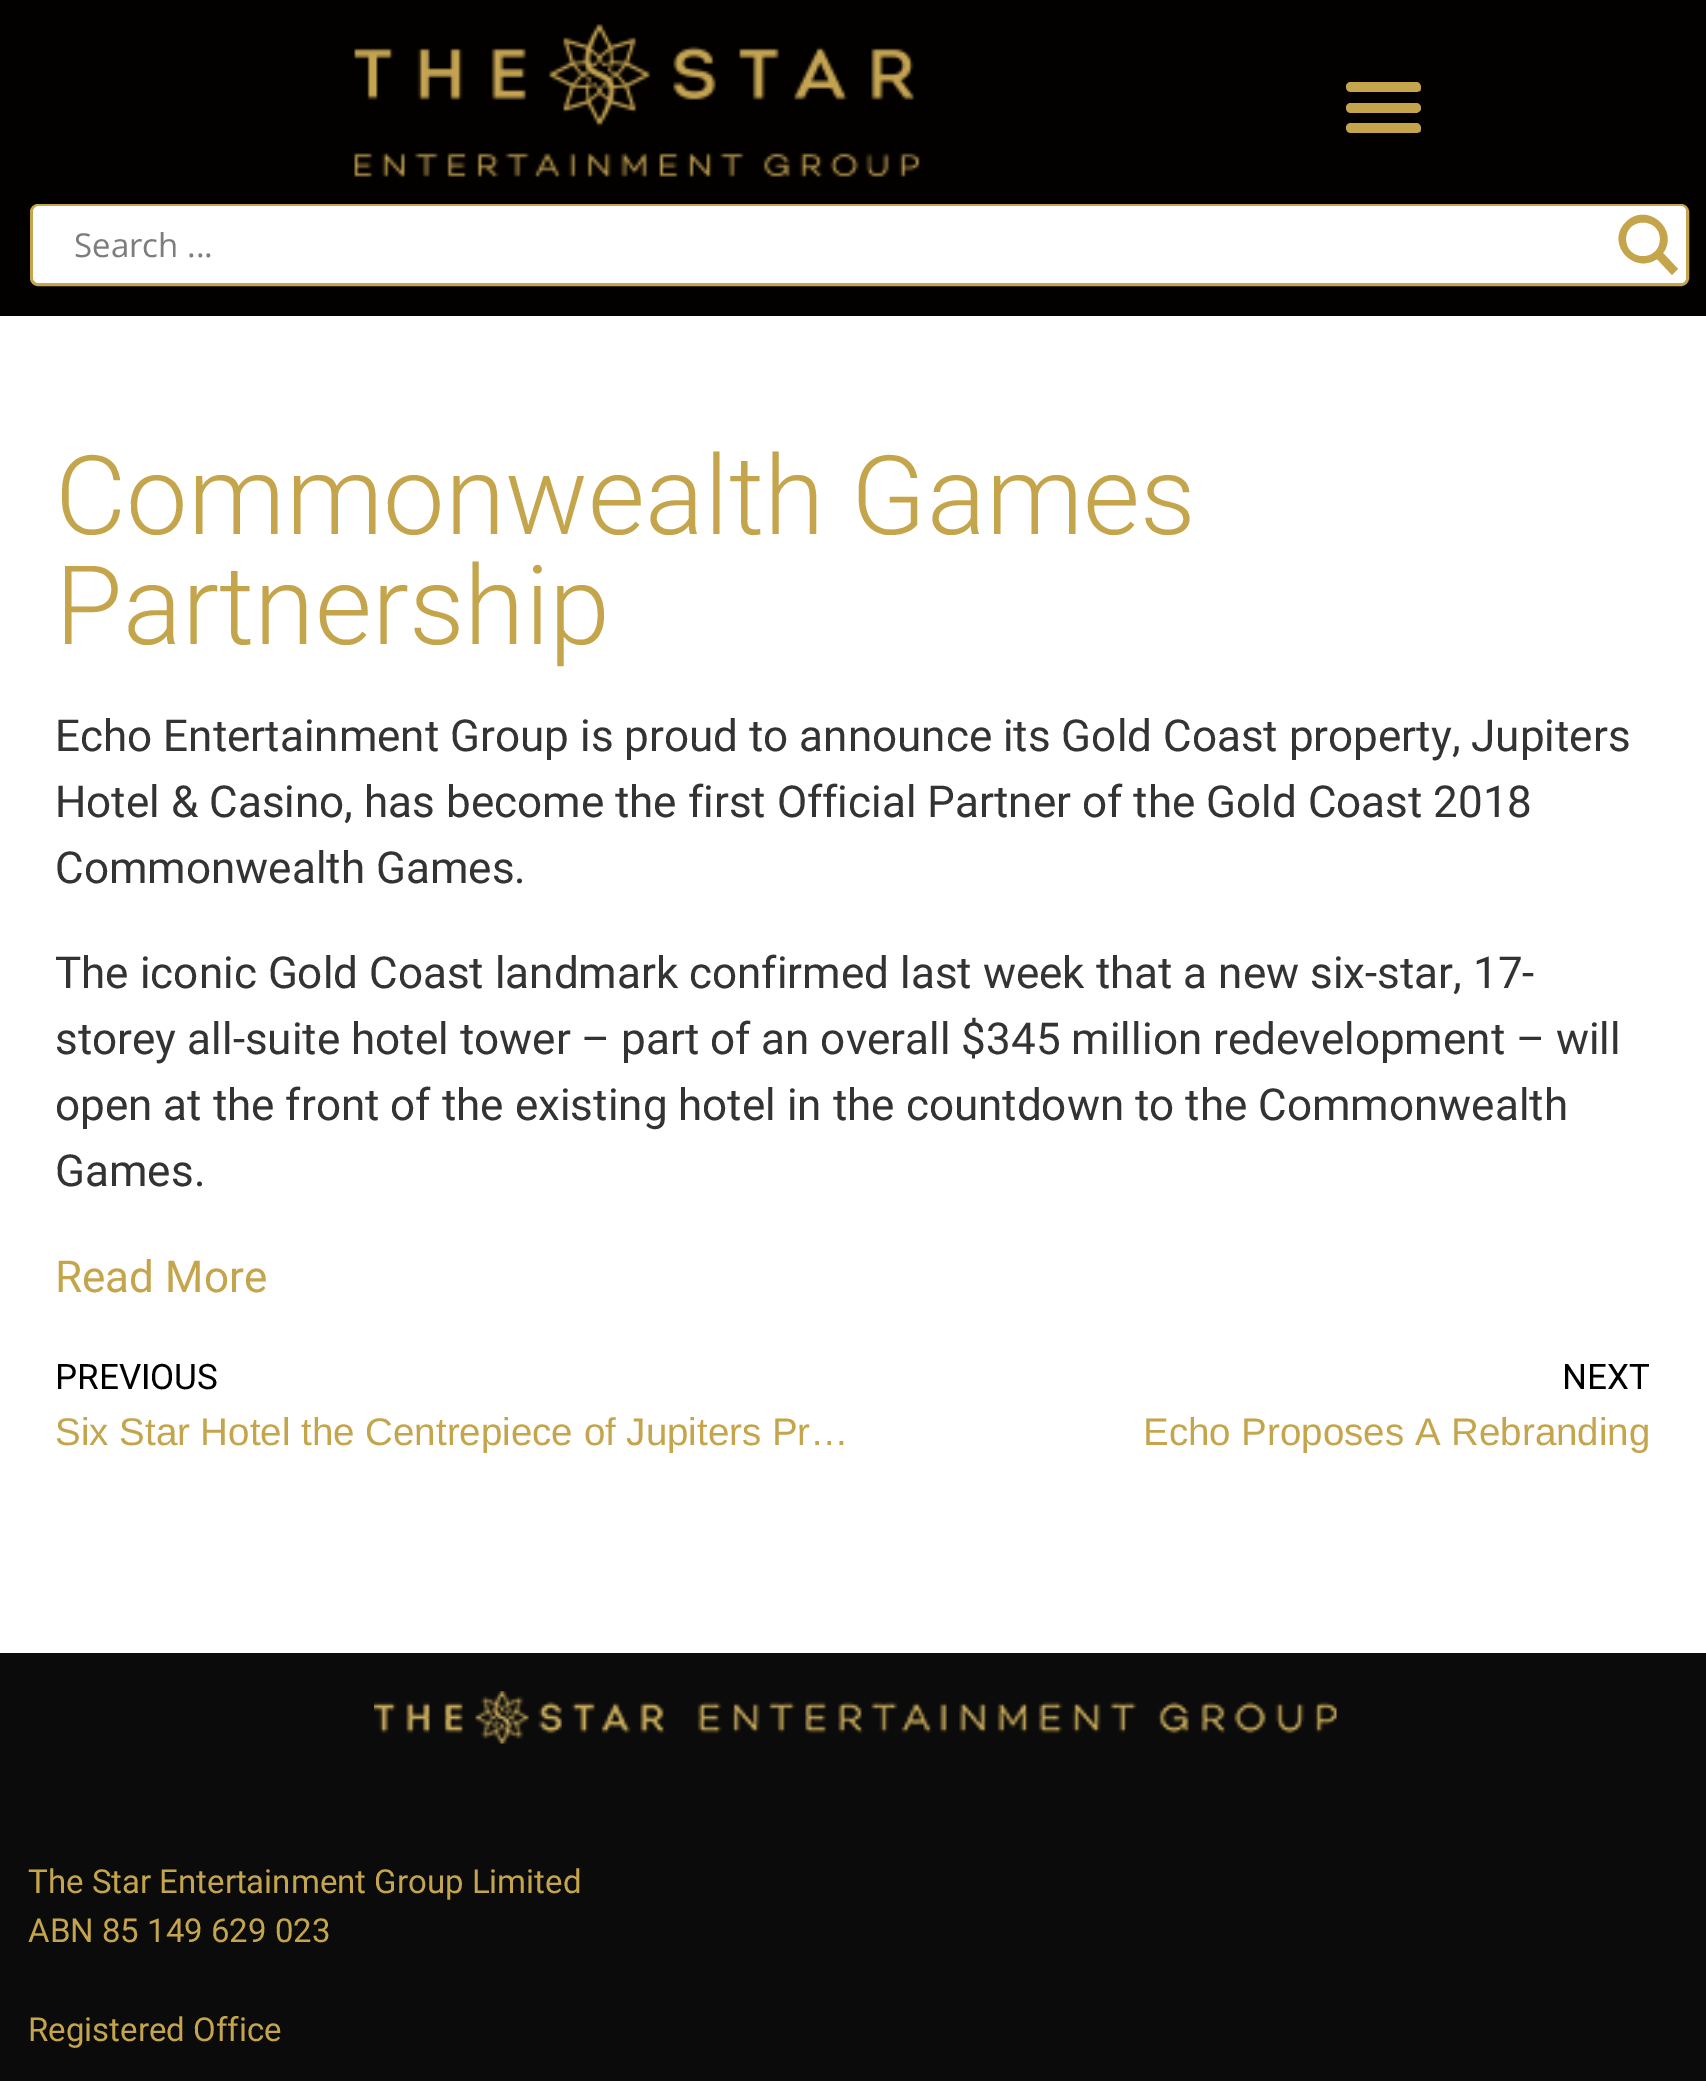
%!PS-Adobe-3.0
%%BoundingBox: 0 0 1706 2081
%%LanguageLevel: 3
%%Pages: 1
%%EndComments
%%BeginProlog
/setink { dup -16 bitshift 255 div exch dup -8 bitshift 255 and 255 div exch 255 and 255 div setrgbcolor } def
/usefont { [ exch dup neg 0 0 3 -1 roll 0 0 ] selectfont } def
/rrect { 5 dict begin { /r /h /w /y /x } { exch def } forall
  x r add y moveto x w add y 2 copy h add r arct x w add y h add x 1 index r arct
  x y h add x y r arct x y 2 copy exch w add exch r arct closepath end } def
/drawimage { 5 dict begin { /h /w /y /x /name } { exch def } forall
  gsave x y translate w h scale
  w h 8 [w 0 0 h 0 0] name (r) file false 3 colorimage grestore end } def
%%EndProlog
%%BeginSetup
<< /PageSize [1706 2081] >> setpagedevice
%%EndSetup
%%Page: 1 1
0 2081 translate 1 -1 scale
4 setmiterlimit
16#FFFFFF setink
0 0 1706 2081 rectfill
16#030000 setink
0 0 1706 316 rectfill
(img1.raw) 354 24 566 153 drawimage
16#C5A54C setink
1351 92 moveto 1417 92 lineto 1420 91 lineto 1422 88 1421 83 1417 82 curveto 1350 82 lineto 1344 83 1345 92 1351 92 curveto closepath 1351 113 moveto 1417 113 lineto 1420 111 lineto 1422 109 1421 104 1417 103 curveto 1350 103 lineto 1344 104 1345 113 1351 113 curveto closepath 1351 133 moveto 1417 133 lineto 1420 132 lineto 1422 129 1421 124 1417 123 curveto 1350 123 lineto 1344 124 1345 133 1351 133 curveto closepath fill
16#FFFFFF setink
31.5 205.5 1656 79 6.5 rrect gsave fill grestore
16#C5A54C setink
3 setlinewidth
stroke
16#FFFFFF setink
33 206 1653 77 6 rrect fill
/OpenSans-Regular 33 usefont
16#7D7D7D setink
74 257 moveto (Search ...) show
16#FFFFFF setink
1609 206 moveto 1680 206 lineto 1683.5 206 1686 208.5 1686 212 curveto 1686 277 lineto 1686 280.5 1683.5 283 1680 283 curveto 1609 283 lineto closepath fill
16#C5A54C setink
1678 269 moveto 1663 253 lineto 1680 230 1647 201 1626 222 curveto 1605 243 1633 275 1657 259 curveto 1672 275 lineto closepath 1626 239 moveto 1626 217 1660 217 1660 239 curveto 1660 262 1626 262 1626 239 curveto closepath fill
/Roboto-Light 110 usefont
55 534 moveto (Commonwealth Games) show
55 644 moveto (Partnership) show
/Roboto-Regular 44 usefont
16#333333 setink
[
    [(Echo Entertainment Group is proud to announce its Gold Coast property, Jupiters) 55 751]
    [(Hotel & Casino, has become the first Official Partner of the Gold Coast 2018) 55 817]
    [(Commonwealth Games.) 55 883]
    [(The iconic Gold Coast landmark confirmed last week that a new six-star, 17-) 55 988]
    [(storey all-suite hotel tower – part of an overall $345 million redevelopment – will) 55 1054]
    [(open at the front of the existing hotel in the countdown to the Commonwealth) 55 1120]
    [(Games.) 55 1186]
] { aload pop moveto show } forall
16#C5A54C setink
55 1292 moveto (Read More) show
/Roboto-Regular 35 usefont
16#000000 setink
55 1389 moveto (PREVIOUS) show
/LiberationSans-Regular 38.5 usefont
16#C5A54C setink
55 1445 moveto (Six Star Hotel the Centrepiece of Jupiters Pr…) show
/Roboto-Regular 35 usefont
16#000000 setink
1562 1389 moveto (NEXT) show
/LiberationSans-Regular 38.5 usefont
16#C5A54C setink
1143 1445 moveto (Echo Proposes A Rebranding) show
16#0B0B0B setink
0 1653 1706 428 rectfill
(img2.raw) 374 1691 963 53 drawimage
/Roboto-Regular 33 usefont
16#C5A54C setink
[
    [(The Star Entertainment Group Limited) 28 1893]
    [(ABN 85 149 629 023) 28 1942]
    [(Registered Office) 28 2041]
] { aload pop moveto show } forall
showpage
%%EOF
